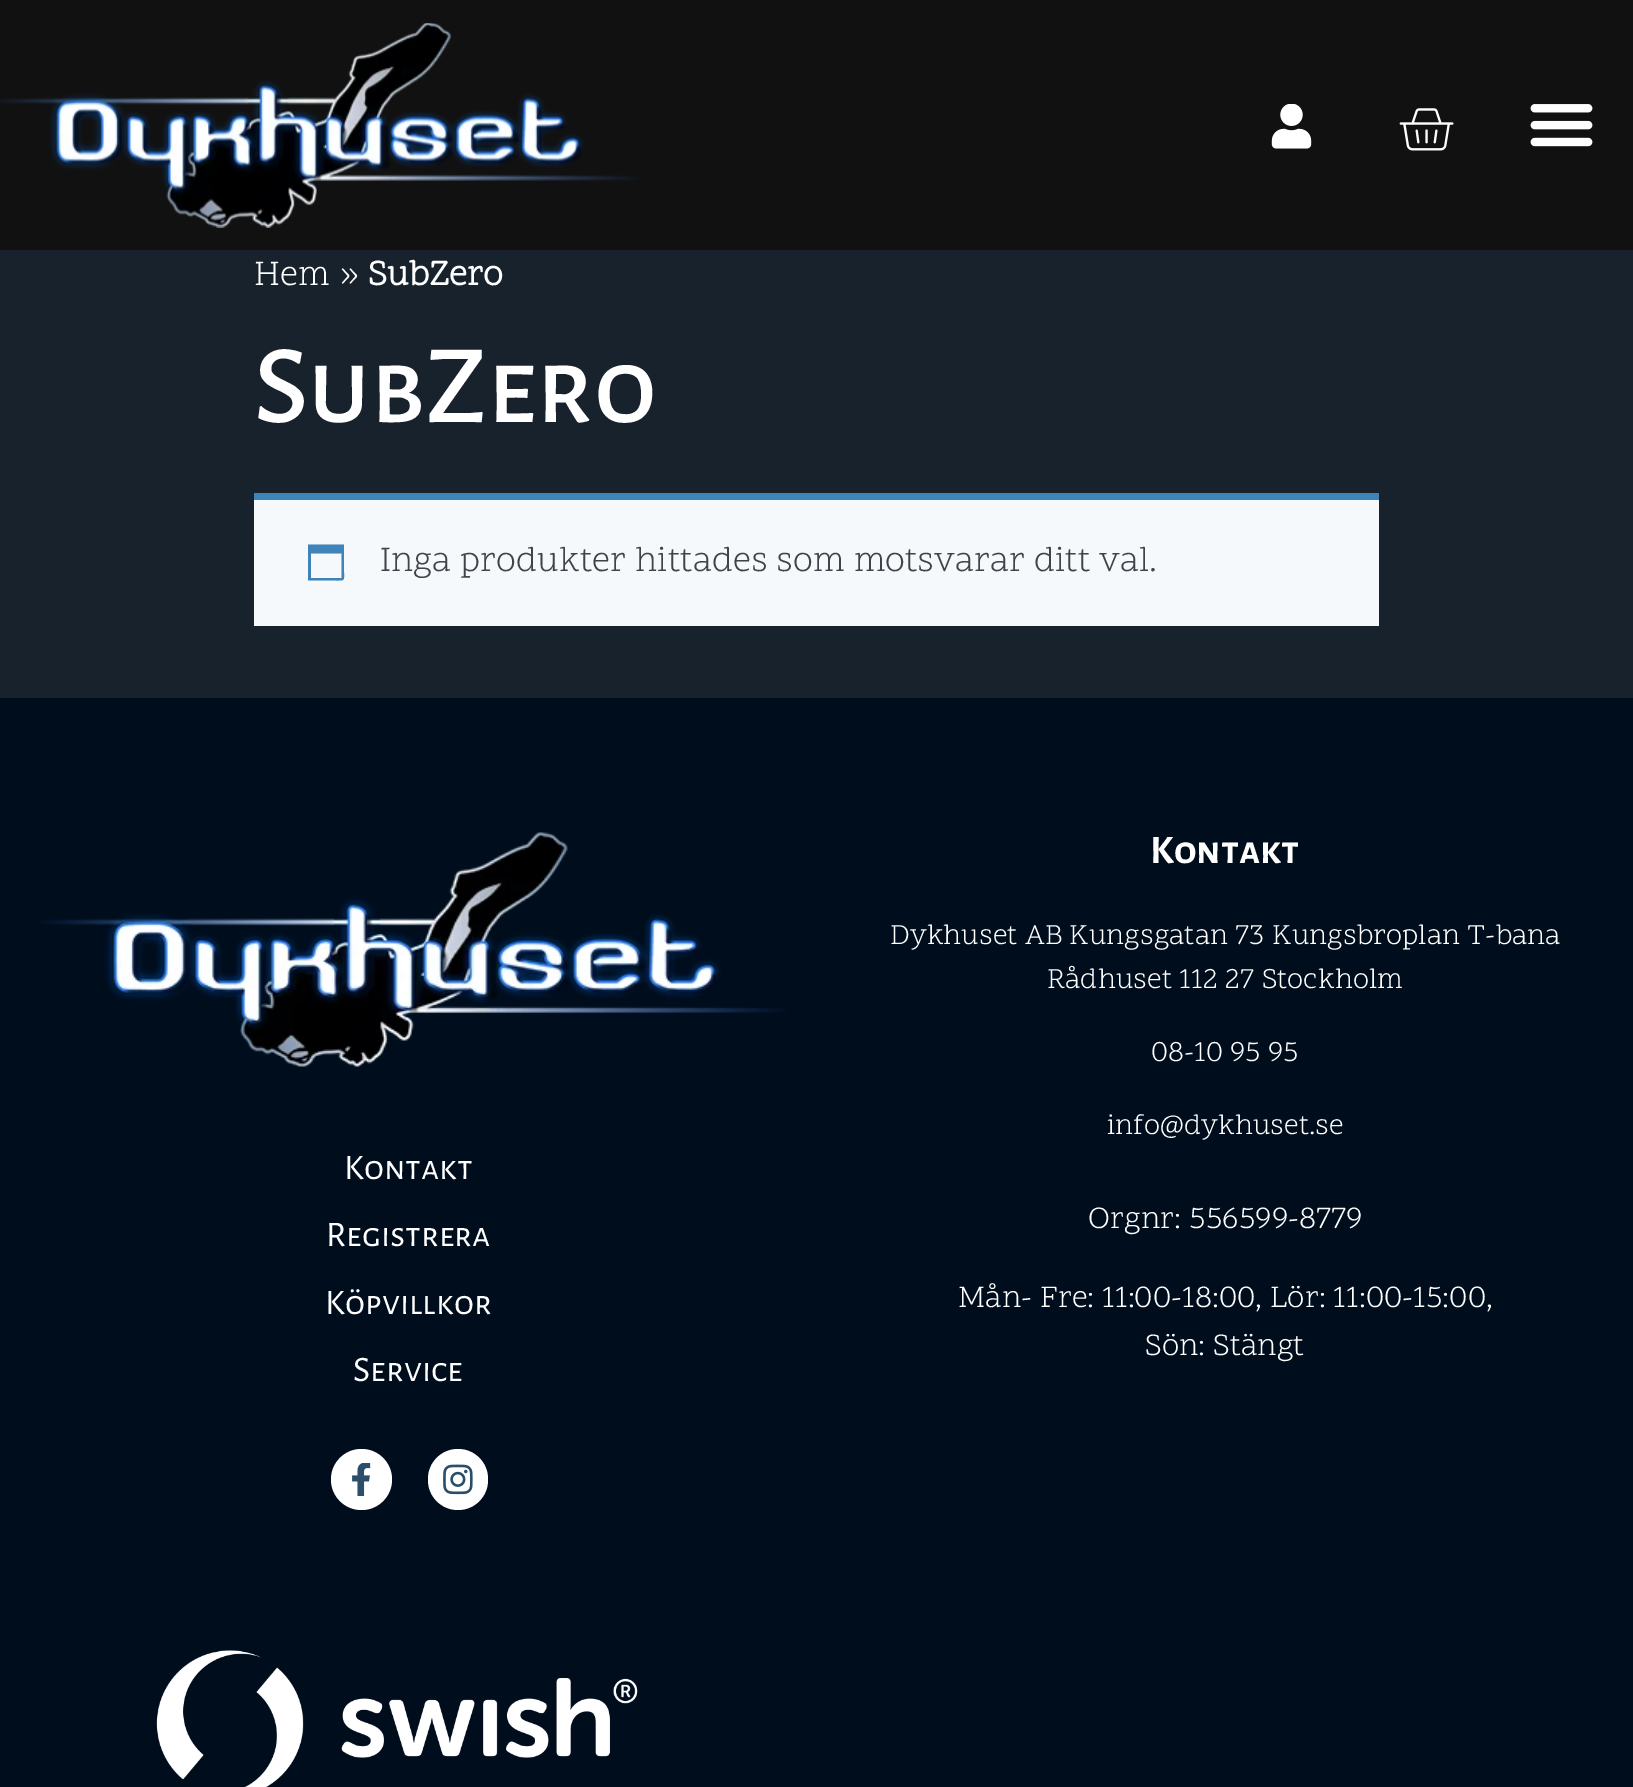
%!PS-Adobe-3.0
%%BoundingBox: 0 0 1633 1787
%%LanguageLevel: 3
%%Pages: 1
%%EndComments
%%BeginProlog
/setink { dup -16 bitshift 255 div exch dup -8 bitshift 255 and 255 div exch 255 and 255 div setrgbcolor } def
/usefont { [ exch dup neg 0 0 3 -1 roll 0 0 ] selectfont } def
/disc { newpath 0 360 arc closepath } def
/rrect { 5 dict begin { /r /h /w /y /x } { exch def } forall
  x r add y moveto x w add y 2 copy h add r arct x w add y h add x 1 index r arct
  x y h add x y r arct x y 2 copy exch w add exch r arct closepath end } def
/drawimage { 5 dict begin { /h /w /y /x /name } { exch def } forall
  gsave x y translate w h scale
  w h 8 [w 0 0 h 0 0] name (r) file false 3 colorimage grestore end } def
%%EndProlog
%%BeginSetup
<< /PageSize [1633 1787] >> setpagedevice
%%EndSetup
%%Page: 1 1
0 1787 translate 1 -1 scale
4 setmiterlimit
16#18222D setink
0 0 1633 1787 rectfill
16#111111 setink
0 0 1633 250 rectfill
(img1.raw) 0 23 640 205 drawimage
(img2.raw) 1271 104 41 45 drawimage
(img3.raw) 1399 108 55 43 drawimage
(img4.raw) 1530 104 63 43 drawimage
/ScopeOne-Regular 36 usefont
16#FFFFFF setink
254 285 moveto (Hem ») show
/ScopeOne-Bold 36 usefont
368 285 moveto (SubZero) show
/AlegreyaSansSC-Medium 112.5 usefont
254 422 moveto (SubZero) show
16#F6F9FB setink
254 500 1125 126 rectfill
16#3F84B9 setink
254 493 1125 7 rectfill
341.5 553.5 moveto 311 553.5 lineto 311 578 lineto 341.5 578 lineto closepath 344 544.5 moveto 344 572 lineto 344 581 345 580.5 336 580.5 curveto 308 580.5 lineto 308 544.5 lineto closepath fill
/ScopeOne-Regular 36 usefont
16#3F444B setink
380 571 moveto (Inga produkter hittades som motsvarar ditt val.) show
16#000D1D setink
0 698 1633 1089 rectfill
(img5.raw) 39 832 747 235 drawimage
/AlegreyaSansSC-Regular 36 usefont
16#FFFFFF setink
[
    [(Kontakt) 344 1179]
    [(Registrera) 326 1246]
    [(Köpvillkor) 325 1314]
    [(Service) 353 1381]
] { aload pop moveto show } forall
361.5 1479.5 30.5 disc fill
(img6.raw) 352 1463 19 33 drawimage
428 1449 60 61 30 rrect fill
(img7.raw) 443 1464 30 31 drawimage
(img8.raw) 156 1650 482 137 drawimage
/AlegreyaSansSC-Bold 40.5 usefont
1150 863 moveto (Kontakt) show
/ScopeOne-Regular 29.25 usefont
[
    [(Dykhuset AB Kungsgatan 73 Kungsbroplan T-bana) 890 944]
    [(Rådhuset 112 27 Stockholm) 1047 988]
    [(08-10 95 95) 1151 1061]
    [(info@dykhuset.se) 1107 1134]
] { aload pop moveto show } forall
/ScopeOne-Regular 31.5 usefont
[
    [(Orgnr: 556599-8779) 1088 1228]
    [(Mån- Fre: 11:00-18:00, Lör: 11:00-15:00,) 958 1307]
    [(Sön: Stängt) 1145 1355]
] { aload pop moveto show } forall
showpage
%%EOF
